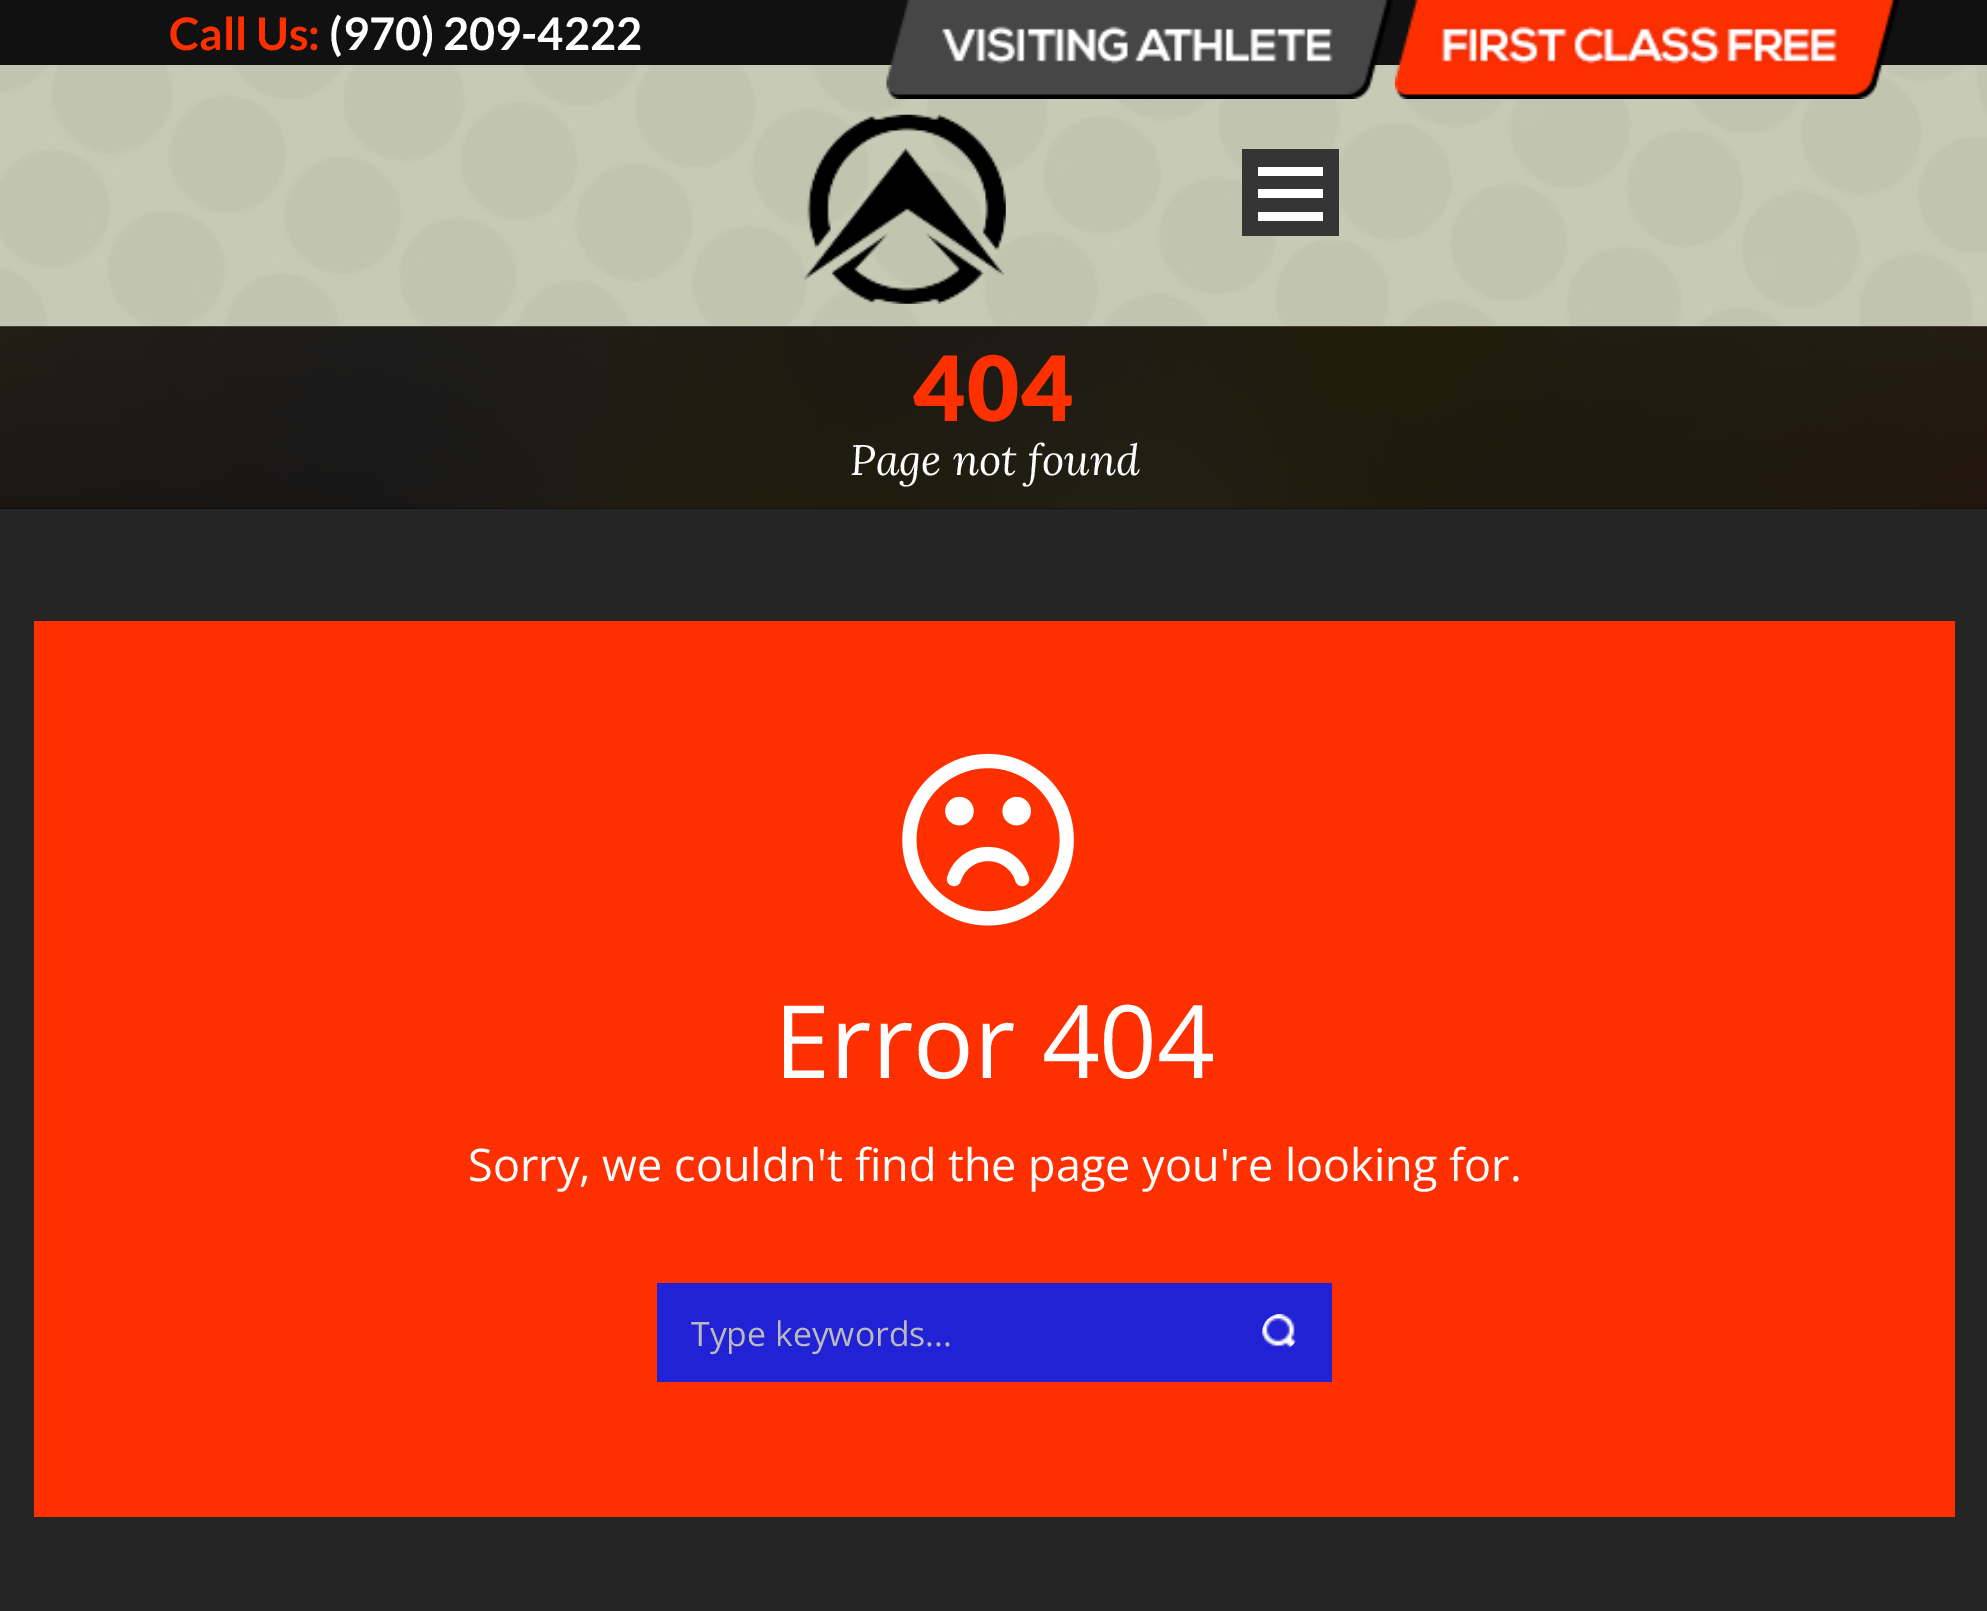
%!PS-Adobe-3.0
%%BoundingBox: 0 0 1987 1611
%%LanguageLevel: 3
%%Pages: 1
%%EndComments
%%BeginProlog
/setink { dup -16 bitshift 255 div exch dup -8 bitshift 255 and 255 div exch 255 and 255 div setrgbcolor } def
/usefont { [ exch dup neg 0 0 3 -1 roll 0 0 ] selectfont } def
/drawimage { 5 dict begin { /h /w /y /x /name } { exch def } forall
  gsave x y translate w h scale
  w h 8 [w 0 0 h 0 0] name (r) file false 3 colorimage grestore end } def
%%EndProlog
%%BeginSetup
<< /PageSize [1987 1611] >> setpagedevice
%%EndSetup
%%Page: 1 1
0 1611 translate 1 -1 scale
4 setmiterlimit
16#252525 setink
0 0 1987 1611 rectfill
16#070707 setink
0 326 1987 183 rectfill
16#111111 setink
0 0 1987 65 rectfill
/Lato-Bold 45 usefont
16#FF3000 setink
169 50 moveto (Call Us:) show
16#FFFFFF setink
329 50 moveto (\(970\) 209-4222) show
(img5.raw) 0 326 1987 183 drawimage
(img3.raw) 0 65 1987 262 drawimage
(img1.raw) 886 0 507 99 drawimage
(img2.raw) 1395 0 504 99 drawimage
(img4.raw) 803 114 203 190 drawimage
[
    [1242 149 97 87 16#353535]
    [1258 212 65 9 16#FFFFFF]
    [1258 189 65 9 16#FFFFFF]
    [1258 167 65 9 16#FFFFFF]
] { aload pop setink rectfill } forall
/Lato-Black 90 usefont
16#FF3000 setink
913 421 moveto 2 0 (404) ashow
/Lora-Italic 42.75 usefont
16#FFFFFF setink
850 475 moveto (Page not found) show
16#FF3000 setink
34 621 1921 896 rectfill
(img6.raw) 902 753 172 173 drawimage
/OpenSans-Regular 101.25 usefont
16#FFFFFF setink
774 1078 moveto (Error 404) show
/OpenSans-Regular 45 usefont
468 1181 moveto (Sorry, we couldn't find the page you're looking for.) show
16#2121D5 setink
657 1283 675 99 rectfill
/OpenSans-Regular 33.75 usefont
16#BABABA setink
691 1346 moveto (Type keywords...) show
(img7.raw) 1262 1314 34 34 drawimage
showpage
%%EOF
